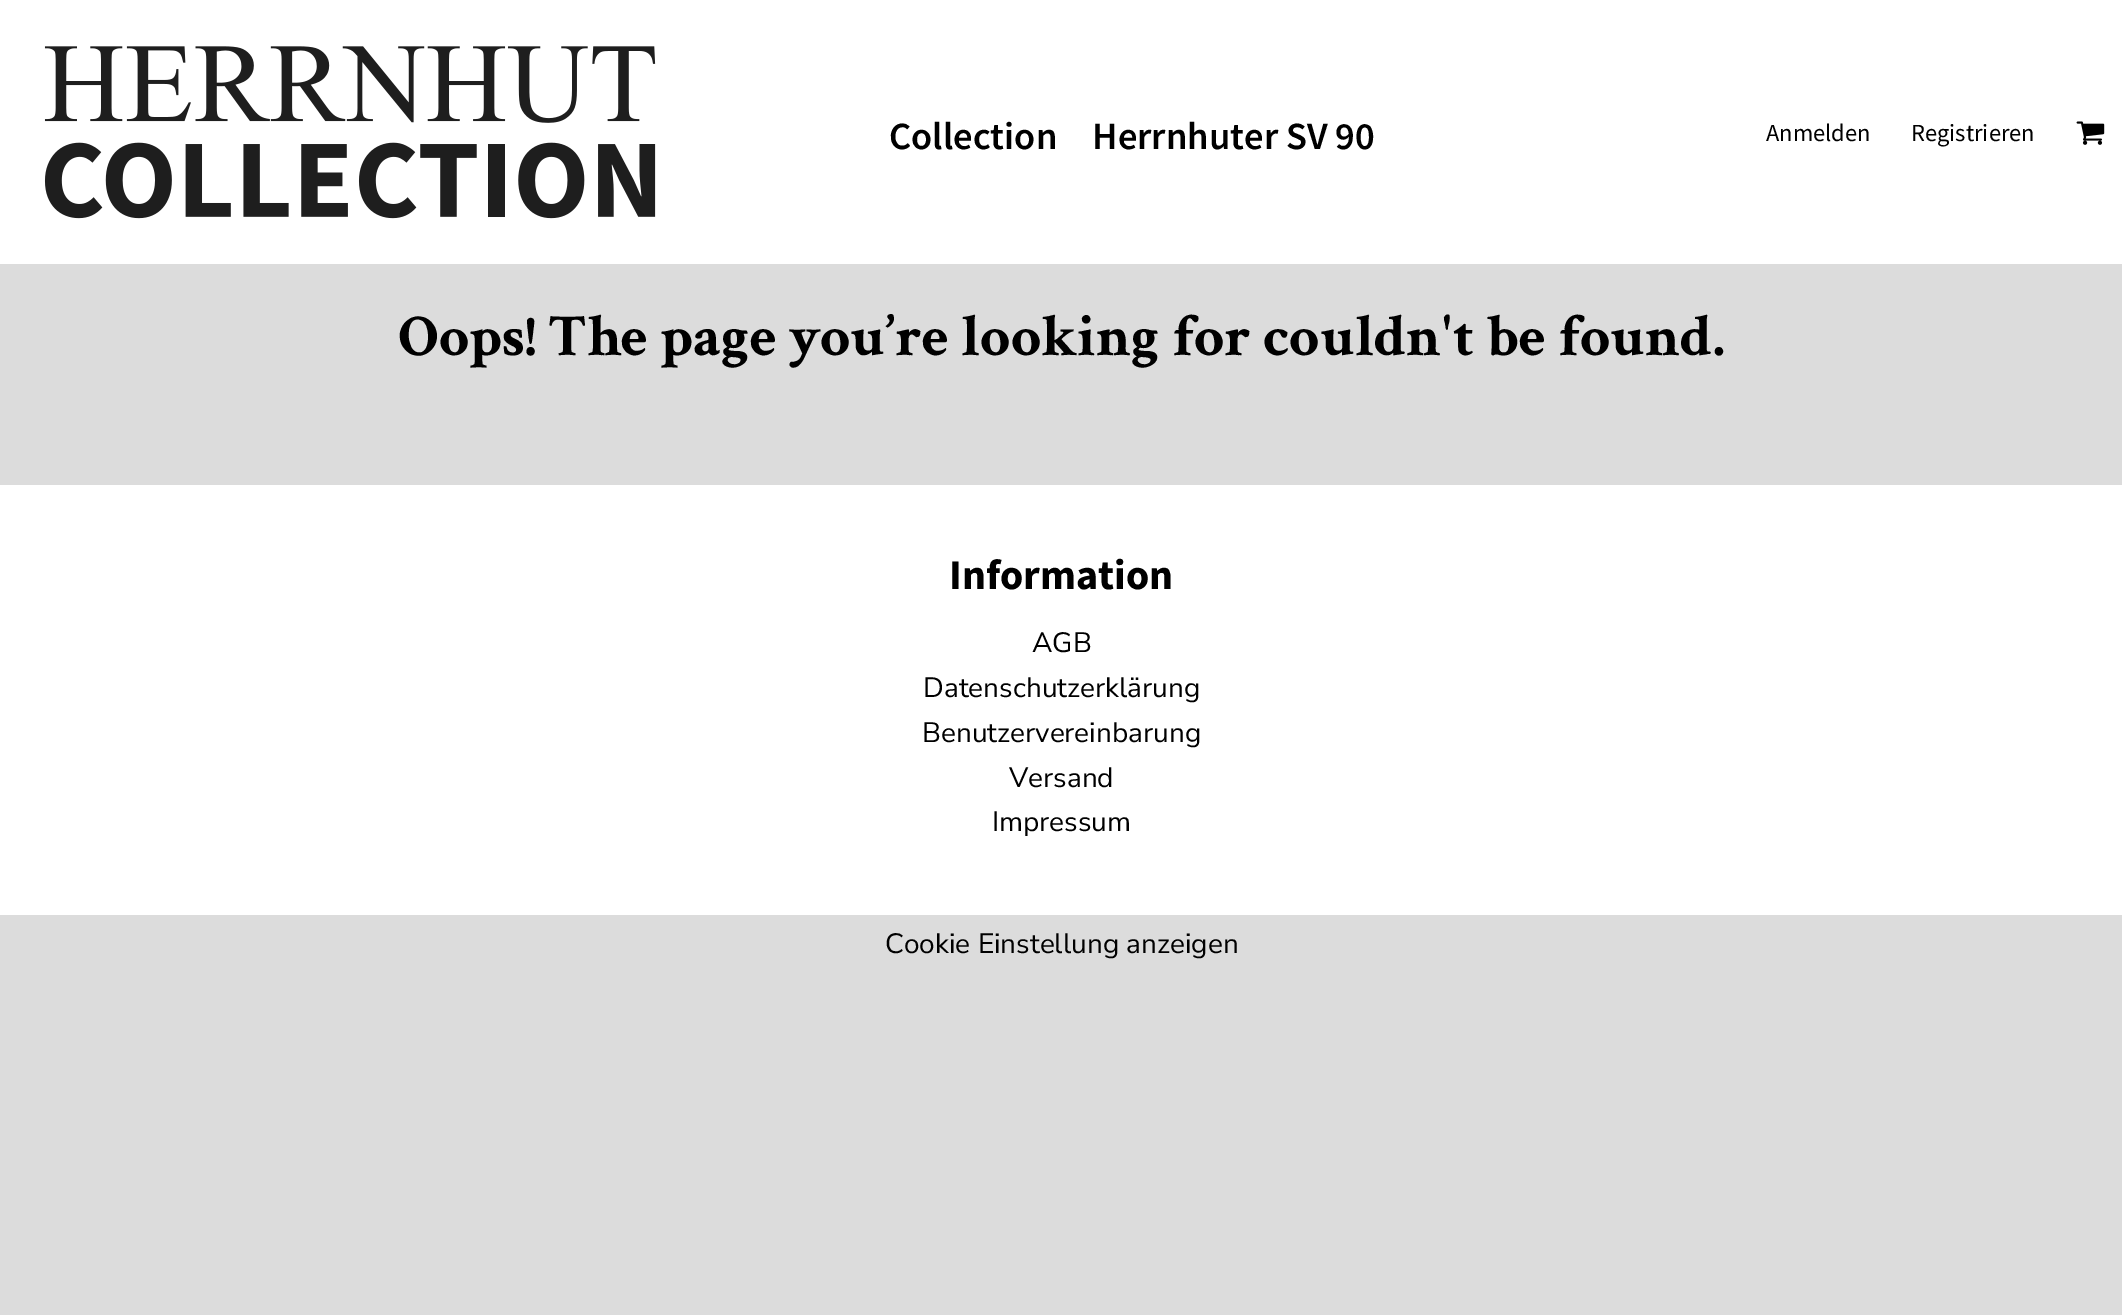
%!PS-Adobe-3.0
%%BoundingBox: 0 0 2122 1315
%%LanguageLevel: 3
%%Pages: 1
%%EndComments
%%BeginProlog
/setink { dup -16 bitshift 255 div exch dup -8 bitshift 255 and 255 div exch 255 and 255 div setrgbcolor } def
/usefont { [ exch dup neg 0 0 3 -1 roll 0 0 ] selectfont } def
/drawimage { 5 dict begin { /h /w /y /x /name } { exch def } forall
  gsave x y translate w h scale
  w h 8 [w 0 0 h 0 0] name (r) file false 3 colorimage grestore end } def
%%EndProlog
%%BeginSetup
<< /PageSize [2122 1315] >> setpagedevice
%%EndSetup
%%Page: 1 1
0 1315 translate 1 -1 scale
4 setmiterlimit
16#DCDCDC setink
0 0 2122 1315 rectfill
16#FFFFFF setink
0 0 2122 264 rectfill
(img1.raw) 44 46 612 173 drawimage
/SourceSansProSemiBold-SemiBold 38.5 usefont
16#000000 setink
889 149 moveto (Collection) show
1092 149 moveto (Herrnhuter SV 90) show
/SourceSansPro-Regular 24.5 usefont
1766 141 moveto (Anmelden) show
1911 141 moveto (Registrieren) show
(img2.raw) 2076 121 29 24 drawimage
/CrimsonText-Bold 59.5 usefont
398 355 moveto (Oops! The page you’re looking for couldn't be found.) show
16#FFFFFF setink
0 485 2122 430 rectfill
/SourceSansPro-Bold 42 usefont
16#000000 setink
949 589 moveto (Information) show
/NunitoSans-ExtraLight 28 usefont
[
    [(AGB) 1032 652]
    [(Datenschutzerklärung) 923 697]
    [(Benutzervereinbarung) 922 742]
    [(Versand) 1009 787]
    [(Impressum) 992 831]
    [(Cookie Einstellung anzeigen) 885 953]
] { aload pop moveto show } forall
showpage
%%EOF
